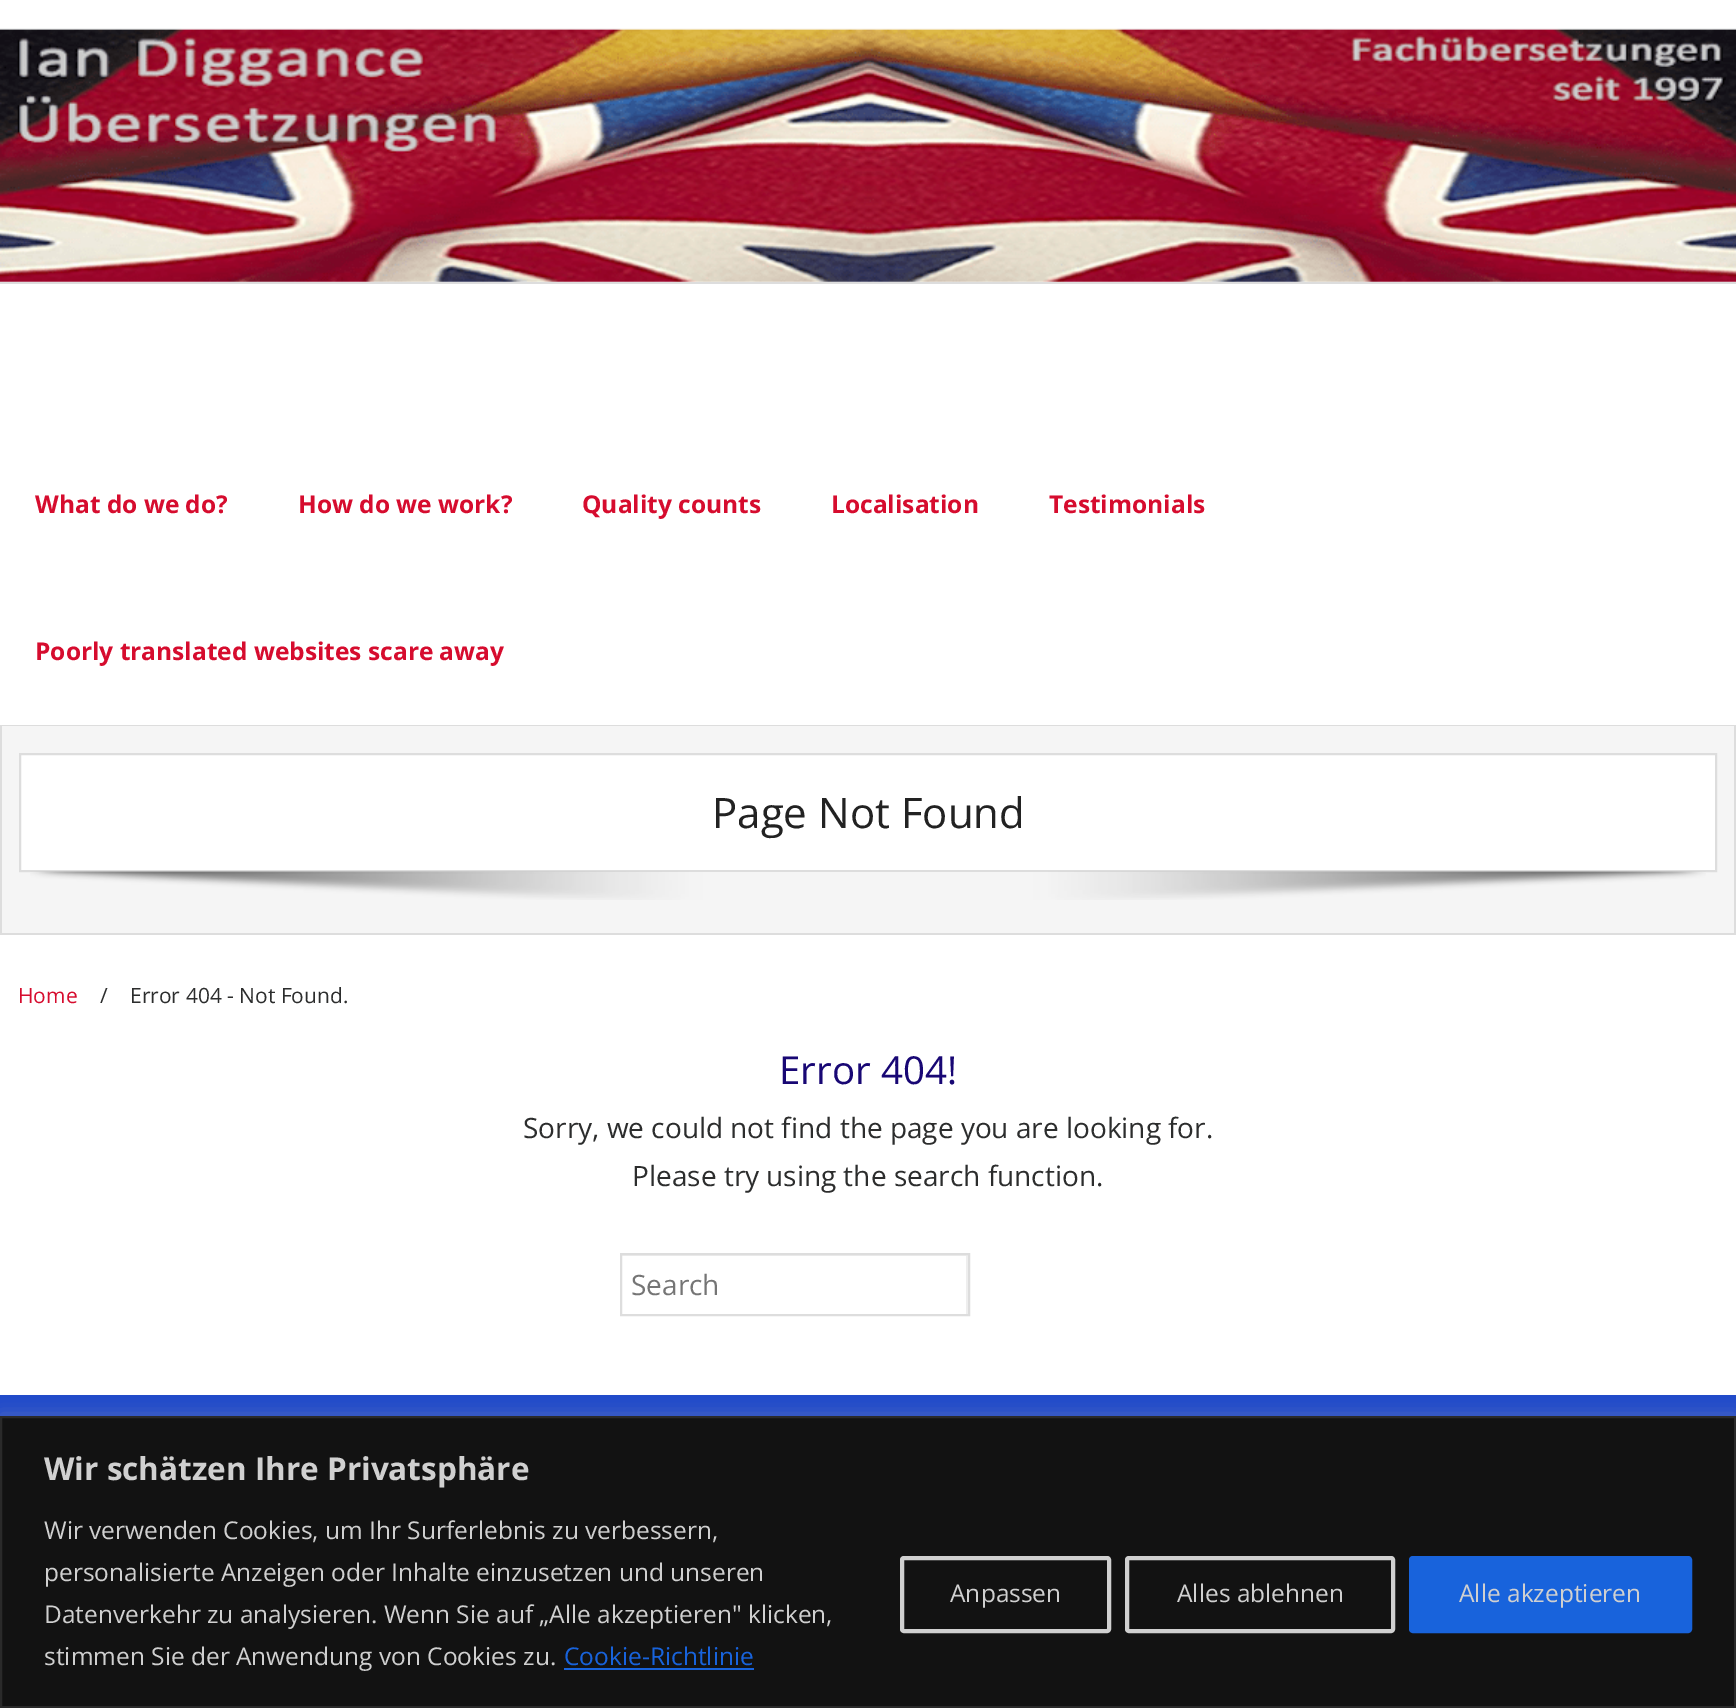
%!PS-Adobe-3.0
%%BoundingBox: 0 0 1736 1708
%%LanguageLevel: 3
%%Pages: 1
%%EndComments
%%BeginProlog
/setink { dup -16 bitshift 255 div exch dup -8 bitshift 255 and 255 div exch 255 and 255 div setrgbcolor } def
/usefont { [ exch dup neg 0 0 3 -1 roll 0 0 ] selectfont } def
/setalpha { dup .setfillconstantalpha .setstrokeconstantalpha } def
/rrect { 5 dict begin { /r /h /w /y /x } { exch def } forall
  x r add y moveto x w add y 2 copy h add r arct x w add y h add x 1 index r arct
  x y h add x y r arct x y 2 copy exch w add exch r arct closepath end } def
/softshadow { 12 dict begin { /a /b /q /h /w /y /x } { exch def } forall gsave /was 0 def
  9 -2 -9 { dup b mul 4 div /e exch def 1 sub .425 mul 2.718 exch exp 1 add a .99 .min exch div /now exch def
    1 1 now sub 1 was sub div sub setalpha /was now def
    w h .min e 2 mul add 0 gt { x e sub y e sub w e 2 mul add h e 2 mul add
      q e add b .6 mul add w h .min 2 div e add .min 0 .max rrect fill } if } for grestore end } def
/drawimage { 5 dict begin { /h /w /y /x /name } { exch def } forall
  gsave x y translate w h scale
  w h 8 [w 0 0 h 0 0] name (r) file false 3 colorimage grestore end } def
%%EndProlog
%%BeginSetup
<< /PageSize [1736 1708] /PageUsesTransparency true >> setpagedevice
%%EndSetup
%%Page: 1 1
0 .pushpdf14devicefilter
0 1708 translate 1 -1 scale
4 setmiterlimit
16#FFFFFF setink
0 0 1736 1708 rectfill
16#000000 setink
-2 280 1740 1265 0 4.5 0.3 softshadow
(img1.raw) 0 28 1736 254 drawimage
[
    [0 284 1736 1111 16#FFFFFF]
    [0 725 1736 1 16#DDDDDD]
    [0 282 1736 2 16#DDDDDD]
] { aload pop setink rectfill } forall
/OpenSans-Bold 24.5 usefont
16#D60C2E setink
[
    [(What do we do?) 35 513]
    [(How do we work?) 298 513]
    [(Quality counts) 582 513]
    [(Localisation) 831 513]
    [(Testimonials) 1049 513]
    [(Poorly translated websites scare away) 35 660]
] { aload pop moveto show } forall
[
    [2 726 1732 207 16#F5F5F5]
    [1734 726 2 209 16#DDDDDD]
    [0 933 1736 2 16#DDDDDD]
    [0 726 2 209 16#DDDDDD]
] { aload pop setink rectfill } forall
16#FFFFFF setink
20 754 moveto 1716 754 lineto 1716 871 lineto 20 871 lineto closepath gsave fill grestore
16#DDDDDD setink
2 setlinewidth
stroke
/OpenSans-Regular 42 usefont
16#222222 setink
712 828 moveto (Page Not Found) show
(img2.raw) 30 871 1676 29 drawimage
/OpenSans-Regular 21 usefont
16#D60C2E setink
18 1003 moveto (Home) show
16#2C2D2D setink
100 1003 moveto (/) show
130 1003 moveto (Error 404 - Not Found.) show
/OpenSans-Regular 38.5 usefont
16#180774 setink
779 1084 moveto (Error 404!) show
/OpenSans-Regular 28 usefont
16#2C2D2D setink
523 1138 moveto (Sorry, we could not find the page you are looking for.) show
632 1186 moveto (Please try using the search function.) show
gsave
621 1255 347 59 rectclip
16#EEEEEE setink
448 1082 moveto 1141 1082 lineto 1141 1488 lineto 448 1488 lineto closepath 620 1256 moveto 966 1256 lineto 966 1316 lineto 620 1316 lineto closepath eofill
grestore
16#DDDDDD setink
621 1254 348 61 rectstroke
16#757575 setink
631 1295 moveto (Search) show
16#204AC9 setink
0 1395 1736 21 rectfill
16#ACABAB setink
0 1414 1736 292 0 9 0.3 softshadow
16#121212 setink
1 1417 moveto 1735 1417 lineto 1735 1707 lineto 1 1707 lineto closepath gsave fill grestore
16#2A2A2A setink
stroke
/OpenSans-Bold 31.5 usefont
16#D0D0D0 setink
44 1480 moveto (Wir schätzen Ihre Privatsphäre) show
/OpenSans-Regular 24.5 usefont
[
    [(Wir verwenden Cookies, um Ihr Surferlebnis zu verbessern,) 44 1539]
    [(personalisierte Anzeigen oder Inhalte einzusetzen und unseren) 44 1581]
    [(Datenverkehr zu analysieren. Wenn Sie auf „Alle akzeptieren" klicken,) 44 1623]
    [(stimmen Sie der Anwendung von Cookies zu.) 44 1665]
] { aload pop moveto show } forall
16#1863DC setink
564 1665 moveto (Cookie-Richtlinie) show
564 1668 190 2 rectfill
16#D0D0D0 setink
4 setlinewidth
902 1558 207 73 2 rrect stroke
950 1602 moveto (Anpassen) show
1127 1558 266 73 2 rrect stroke
1177 1602 moveto (Alles ablehnen) show
16#1863DC setink
1411 1558 279 73 2 rrect gsave fill grestore
stroke
16#D0D0D0 setink
1459 1602 moveto (Alle akzeptieren) show
.poppdf14devicefilter showpage
%%EOF
